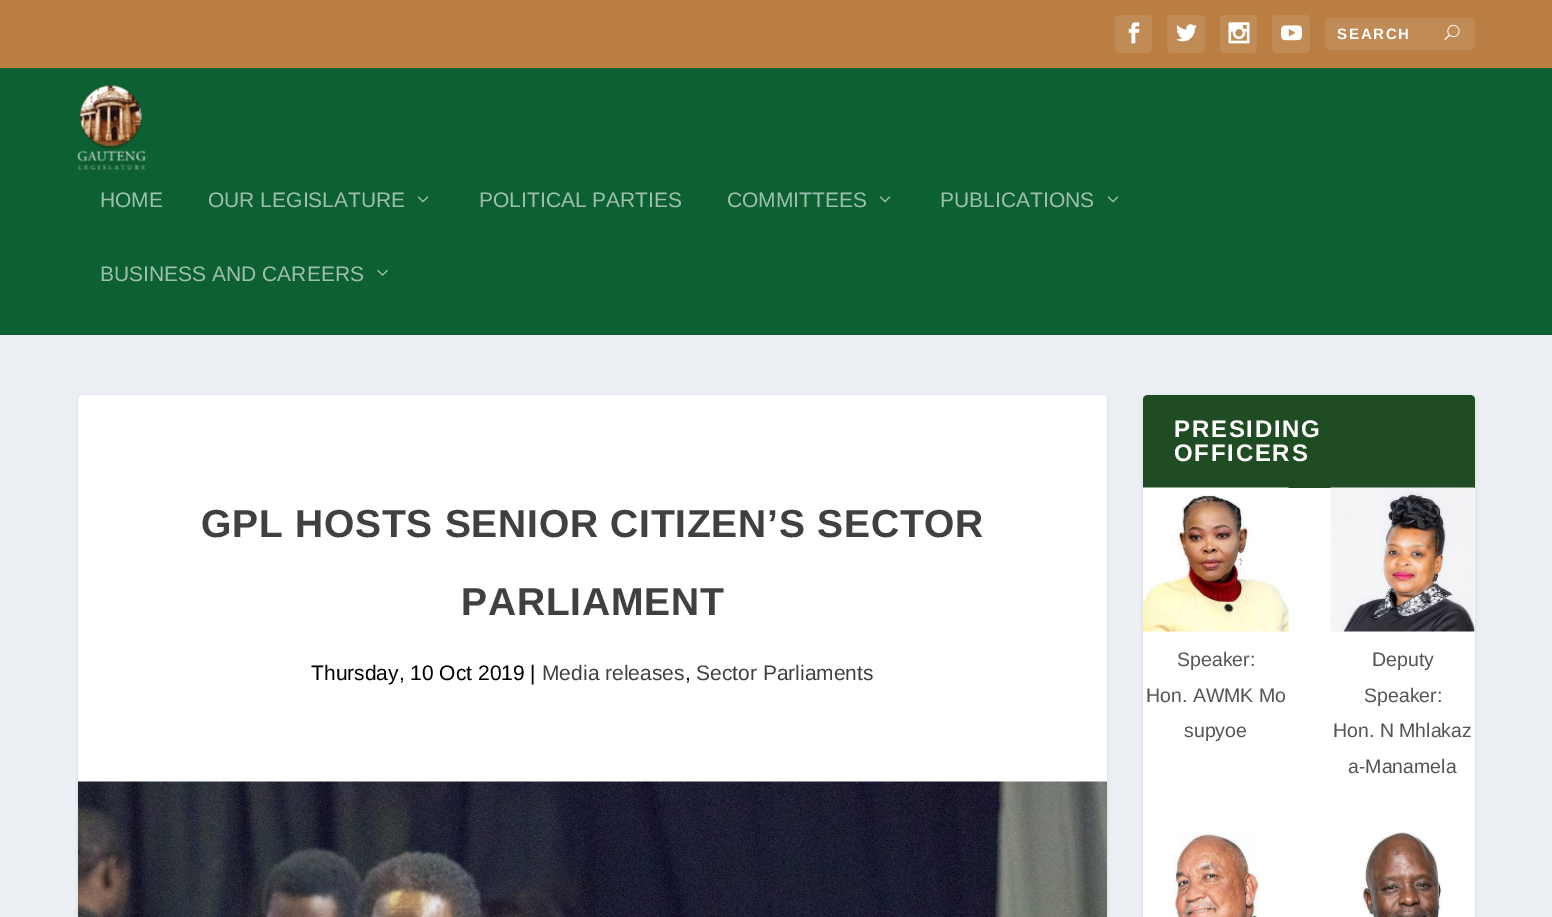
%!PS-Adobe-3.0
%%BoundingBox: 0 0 1552 917
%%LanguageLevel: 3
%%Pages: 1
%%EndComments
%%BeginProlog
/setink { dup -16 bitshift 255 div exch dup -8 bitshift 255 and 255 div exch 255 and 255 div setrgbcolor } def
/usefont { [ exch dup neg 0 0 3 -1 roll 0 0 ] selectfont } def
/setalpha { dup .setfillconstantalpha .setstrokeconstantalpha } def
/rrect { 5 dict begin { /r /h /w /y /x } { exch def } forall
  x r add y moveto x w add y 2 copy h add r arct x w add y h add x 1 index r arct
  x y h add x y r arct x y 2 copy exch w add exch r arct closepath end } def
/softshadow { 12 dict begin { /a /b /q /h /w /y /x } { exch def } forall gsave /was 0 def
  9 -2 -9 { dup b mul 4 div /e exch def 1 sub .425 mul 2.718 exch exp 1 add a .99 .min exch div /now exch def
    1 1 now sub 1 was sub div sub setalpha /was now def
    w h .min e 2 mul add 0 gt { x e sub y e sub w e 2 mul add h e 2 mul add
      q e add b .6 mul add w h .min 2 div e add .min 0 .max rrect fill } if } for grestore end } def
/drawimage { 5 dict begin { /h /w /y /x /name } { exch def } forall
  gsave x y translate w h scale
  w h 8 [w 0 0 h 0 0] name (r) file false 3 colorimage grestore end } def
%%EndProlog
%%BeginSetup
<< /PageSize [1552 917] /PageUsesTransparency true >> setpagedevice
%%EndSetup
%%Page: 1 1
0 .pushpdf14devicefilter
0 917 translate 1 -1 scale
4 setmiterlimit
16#ECF0F5 setink
0 0 1552 917 rectfill
16#BA7E43 setink
0 0 1552 68 rectfill
16#C18B56 setink
1115 15 37 38 5 rrect fill
(img1.raw) 1128 22 12 22 drawimage
1167 15 38 38 5 rrect fill
(img2.raw) 1176 24 21 18 drawimage
1220 15 37 38 5 rrect fill
(img3.raw) 1228 22 22 22 drawimage
1272 15 38 38 5 rrect fill
(img4.raw) 1281 25 21 16 drawimage
1325 18 150 32 5 rrect fill
/LiberationSans-Bold 15 usefont
16#FFFFFF setink
1337 39 moveto 1.75 0 (SEARCH) ashow
(img5.raw) 1444 24 16 16 drawimage
16#0C6032 setink
0 68 1552 267 rectfill
(img6.raw) 77 85 69 85 drawimage
/LiberationSans-Regular 21 usefont
16#9EBFAD setink
100 207 moveto (HOME) show
208 207 moveto (OUR LEGISLATURE) show
(img7.raw) 417 196 12 7 drawimage
479 207 moveto (POLITICAL PARTIES) show
727 207 moveto (COMMITTEES) show
(img7.raw) 879 196 12 7 drawimage
940 207 moveto (PUBLICATIONS) show
(img7.raw) 1107 196 12 7 drawimage
100 281 moveto (BUSINESS AND CAREERS) show
(img8.raw) 377 269 11 7 drawimage
16#000000 setink
78 396 1029 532 5 2 0.1 softshadow
16#FFFFFF setink
78 395 1029 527 5 rrect fill
/LiberationSans-Bold 39 usefont
16#404040 setink
201 537 moveto 0.75 0 (GPL HOSTS SENIOR CITIZEN’S SECTOR) ashow
461 615 moveto 0.75 0 (PARLIAMENT) ashow
/LiberationSans-Regular 21 usefont
16#000000 setink
311 680 moveto (Thursday, 10 Oct 2019 |) show
16#404040 setink
542 680 moveto (Media releases) show
16#000000 setink
685 680 moveto (,) show
16#404040 setink
696 680 moveto (Sector Parliaments) show
(img9.raw) 78 781 1029 136 drawimage
16#000000 setink
1143 396 332 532 5 2 0.1 softshadow
16#FFFFFF setink
1143 395 332 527 5 rrect fill
16#1F4C22 setink
1148 395 moveto 1470 395 lineto 1473 395 1475 397 1475 400 curveto 1475 488 lineto 1143 488 lineto 1143 400 lineto 1143 397 1145 395 1148 395 curveto closepath fill
/LiberationSans-Bold 24 usefont
16#FFFFFF setink
1174 437 moveto 1.75 0 (PRESIDING) ashow
1174 461 moveto 1.75 0 (OFFICERS) ashow
(img10.raw) 1143 487 146 145 drawimage
/LiberationSans-Regular 19.5 usefont
16#555555 setink
[
    [(Speaker:) 1177 666]
    [(Hon. AWMK Mo) 1146 702]
    [(supyoe) 1184 737]
] { aload pop moveto show } forall
(img11.raw) 1330 487 145 145 drawimage
[
    [(Deputy) 1372 666]
    [(Speaker:) 1364 702]
    [(Hon. N Mhlakaz) 1333 737]
    [(a-Manamela) 1348 773]
] { aload pop moveto show } forall
(img12.raw) 1174 832 86 85 drawimage
(img13.raw) 1361 832 81 85 drawimage
.poppdf14devicefilter showpage
%%EOF
